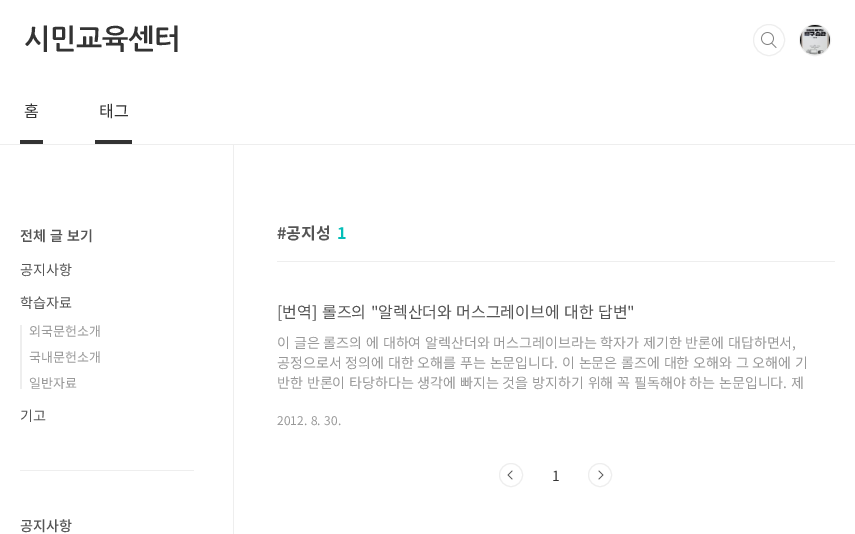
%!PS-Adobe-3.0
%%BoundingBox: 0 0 855 534
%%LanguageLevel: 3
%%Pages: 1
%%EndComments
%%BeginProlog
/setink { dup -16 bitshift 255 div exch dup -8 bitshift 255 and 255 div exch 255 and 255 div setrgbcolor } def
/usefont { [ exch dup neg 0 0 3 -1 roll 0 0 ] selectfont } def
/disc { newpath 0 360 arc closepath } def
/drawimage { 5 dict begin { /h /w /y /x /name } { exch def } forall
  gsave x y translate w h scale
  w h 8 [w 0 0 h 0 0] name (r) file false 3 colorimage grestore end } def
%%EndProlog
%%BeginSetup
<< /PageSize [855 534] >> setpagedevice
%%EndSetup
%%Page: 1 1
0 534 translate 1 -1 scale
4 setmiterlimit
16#FFFFFF setink
0 0 855 534 rectfill
16#EEEEEE setink
0 144 855 1 rectfill
/NanumGothic-Bold 28 usefont
16#333333 setink
24 49 moveto -0.25 0 (시민교육센터) ashow
16#EEEEEE setink
769 40 14.5 disc stroke
16#FFFFFF setink
769 40 16 disc fill
(img1.raw) 761 32 16 16 drawimage
16#EEEEEE setink
769 40 15.5 disc stroke
815 40 15.5 disc stroke
(img2.raw) 800 25 30 30 drawimage
/NotoSansKR-Regular 16 usefont
16#333333 setink
24 117 moveto (홈) show
20 140 23 4 rectfill
99 117 moveto (태그) show
95 140 37 4 rectfill
/NotoSansKR-SemiBold 14 usefont
16#555555 setink
20 241 moveto 1 0 32 (전체 글 보기) widthshow
/NotoSansKR-Regular 14 usefont
20 275 moveto (공지사항) show
20 308 moveto (학습자료) show
16#EEEEEE setink
20 325 2 64 rectfill
/NotoSansKR-Regular 13 usefont
16#999999 setink
[
    [(외국문헌소개) 29 336]
    [(국내문헌소개) 29 362]
    [(일반자료) 29 388]
] { aload pop moveto show } forall
/NotoSansKR-Regular 14 usefont
16#555555 setink
20 421 moveto (기고) show
16#EEEEEE setink
20 470 174 1 rectfill
/NotoSansKR-Medium 14 usefont
16#555555 setink
20 531 moveto (공지사항) show
16#EEEEEE setink
233 145 1 389 rectfill
277 261 558 1 rectfill
/NotoSansKR-Bold 16 usefont
16#555555 setink
277 239 moveto (#공지성) show
16#04BEB8 setink
337 239 moveto (1) show
/NotoSansKR-Regular 16 usefont
16#555555 setink
277 318 moveto 1 0 32 ([번역] 롤즈의 "알렉산더와 머스그레이브에 대한 답변") widthshow
/NotoSansKR-Regular 14 usefont
16#999999 setink
277 348 moveto 0.75 0 32 (이 글은 롤즈의 에 대하여 알렉산더와 머스그레이브라는 학자가 제기한 반론에 대답하면서,) widthshow
277 368 moveto 0.75 0 32 (공정으로서 정의에 대한 오해를 푸는 논문입니다. 이 논문은 롤즈에 대한 오해와 그 오해에 기) widthshow
277 388 moveto 0.75 0 32 (반한 반론이 타당하다는 생각에 빠지는 것을 방지하기 위해 꼭 필독해야 하는 논문입니다. 제) widthshow
/NotoSansKR-Regular 12 usefont
277 425 moveto 1 0 32 (2012. 8. 30.) widthshow
(img3.raw) 507 470 6 10 drawimage
16#EEEEEE setink
511 475 11.5 disc stroke
/NotoSansKR-Regular 14 usefont
16#333333 setink
552 481 moveto (1) show
(img4.raw) 598 470 6 10 drawimage
16#EEEEEE setink
600 475 11.5 disc stroke
showpage
%%EOF
